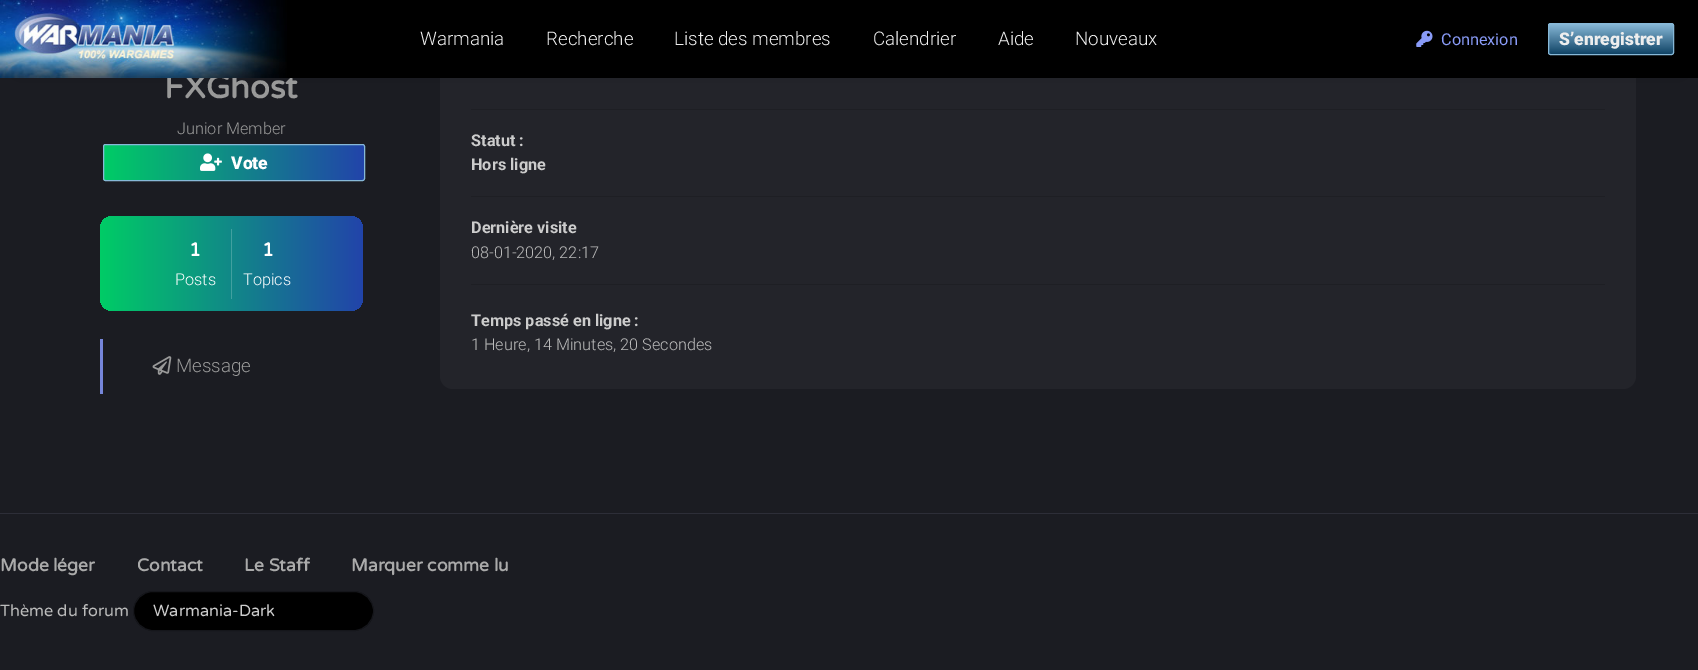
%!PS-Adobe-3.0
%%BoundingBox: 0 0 1698 670
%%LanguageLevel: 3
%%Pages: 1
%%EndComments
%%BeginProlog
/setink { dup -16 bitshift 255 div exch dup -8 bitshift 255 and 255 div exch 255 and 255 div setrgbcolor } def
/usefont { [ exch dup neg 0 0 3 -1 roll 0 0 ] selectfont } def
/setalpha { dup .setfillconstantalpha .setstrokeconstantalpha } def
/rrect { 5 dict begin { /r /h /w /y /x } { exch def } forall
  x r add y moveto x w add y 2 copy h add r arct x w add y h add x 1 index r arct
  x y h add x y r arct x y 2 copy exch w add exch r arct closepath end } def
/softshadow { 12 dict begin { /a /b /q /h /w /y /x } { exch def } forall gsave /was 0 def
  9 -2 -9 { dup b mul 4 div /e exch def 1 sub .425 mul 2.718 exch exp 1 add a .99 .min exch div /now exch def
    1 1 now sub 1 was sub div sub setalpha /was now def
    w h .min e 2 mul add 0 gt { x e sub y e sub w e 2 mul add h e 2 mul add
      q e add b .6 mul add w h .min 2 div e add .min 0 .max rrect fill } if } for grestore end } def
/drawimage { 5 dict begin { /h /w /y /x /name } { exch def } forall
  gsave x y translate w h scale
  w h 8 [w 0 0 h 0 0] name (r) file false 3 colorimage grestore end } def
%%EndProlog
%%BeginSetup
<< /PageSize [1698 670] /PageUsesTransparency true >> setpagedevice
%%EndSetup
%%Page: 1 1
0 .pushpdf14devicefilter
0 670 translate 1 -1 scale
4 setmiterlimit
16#1B1C22 setink
0 0 1698 670 rectfill
16#23242A setink
440 -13 1196 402 13 rrect fill
16#000000 setink
15 28 1669 47 0 10.5 0.15 softshadow
/VarelaRound-Bold 32.5 usefont
16#999999 setink
164 98 moveto (FXGhost) show
16#000000 setink
287 0 1411 78 rectfill
(img1.raw) 0 0 287 78 drawimage
/Roboto-Light 18.75 usefont
16#EEEEEE setink
[
    [(Warmania) 420 45]
    [(Recherche) 546 45]
    [(Liste des membres) 674 45]
    [(Calendrier) 873 45]
    [(Aide) 998 45]
    [(Nouveaux) 1075 45]
] { aload pop moveto show } forall
(img2.raw) 1416 30 17 17 drawimage
/Roboto-Regular 16.25 usefont
16#899BF7 setink
1441 45 moveto (Connexion) show
gsave
1548 23 126 32 2.5 rrect clip newpath
gsave 1548 24 moveto 1674 24 lineto 1674 54 lineto 1548 54 lineto closepath clip newpath
<< /ShadingType 2 /ColorSpace /DeviceRGB /Coords [1611 24 1611 54] /Extend [true true] /Function << /FunctionType 2 /Domain [0 1] /C0 [0.529 0.722 0.843] /C1 [0.067 0.267 0.4] /N 1 >> >> shfill grestore
grestore
16#87B8D7 setink
1548.5 23.5 125 31 2 rrect stroke
/Roboto-Black 17.5 usefont
16#EEEEEE setink
1559 45 moveto (S’enregistrer) show
/Roboto-Light 16.25 usefont
16#999999 setink
177 134 moveto (Junior Member) show
gsave
103 144 262 37 2.5 rrect clip newpath
gsave 104 144 moveto 364 144 lineto 364 181 lineto 104 181 lineto closepath clip newpath
<< /ShadingType 2 /ColorSpace /DeviceRGB /Coords [104 163 364 163] /Extend [true true] /Function << /FunctionType 2 /Domain [0 1] /C0 [0 0.8 0.4] /C1 [0.133 0.267 0.667] /N 1 >> >> shfill grestore
grestore
16#87B8D7 setink
103.5 144.5 261 36 2 rrect stroke
(img3.raw) 200 153 22 18 drawimage
/Roboto-Black 17.5 usefont
16#FFFFFF setink
231 169 moveto (Vote) show
gsave 100 216 263 95 13 rrect clip newpath
<< /ShadingType 2 /ColorSpace /DeviceRGB /Coords [100 264 363 264] /Extend [true true] /Function << /FunctionType 2 /Domain [0 1] /C0 [0 0.8 0.4] /C1 [0.133 0.267 0.667] /N 1 >> >> shfill grestore
16#41A0A0 setink
231 229 1 70 rectfill
/VarelaRound-Bold 19 usefont
16#FFFFFF setink
189 256 moveto (1) show
/Roboto-Light 16.25 usefont
175 285 moveto (Posts) show
/VarelaRound-Bold 19 usefont
262 256 moveto (1) show
/Roboto-Light 16.25 usefont
243 285 moveto (Topics) show
16#7686DA setink
100 339 3 55 rectfill
(img4.raw) 152 356 20 19 drawimage
/Roboto-Light 18.75 usefont
16#999999 setink
176 372 moveto (Message) show
16#1E1F24 setink
471 109 1134 1 rectfill
471 196 1134 1 rectfill
/Roboto-Bold 16.25 usefont
16#CCCCCC setink
471 146 moveto (Statut :) show
471 170 moveto (Hors ligne) show
16#1E1F24 setink
471 284 1134 1 rectfill
16#CCCCCC setink
471 233 moveto (Dernière visite) show
/Roboto-Light 16.25 usefont
16#BBBBBB setink
471 258 moveto (08-01-2020, 22:17) show
/Roboto-Bold 16.25 usefont
16#CCCCCC setink
471 326 moveto (Temps passé en ligne :) show
/Roboto-Light 16.25 usefont
16#BBBBBB setink
471 350 moveto (1 Heure, 14 Minutes, 20 Secondes) show
16#2D2E38 setink
0 513 1698 1 rectfill
/VarelaRound-Bold 17.5 usefont
16#AAAAAA setink
[
    [(Mode léger) 0 571]
    [(Contact) 137 571]
    [(Le Staff) 244 571]
    [(Marquer comme lu) 351 571]
] { aload pop moveto show } forall
/VarelaRound-Regular 16.25 usefont
16#BBBBBB setink
0 616 moveto (Thème du forum) show
16#000000 setink
133.5 591.5 240 39 19.5 rrect gsave fill grestore
16#15161B setink
stroke
16#CCCCCC setink
153 616 moveto (Warmania-Dark) show
.poppdf14devicefilter showpage
%%EOF
